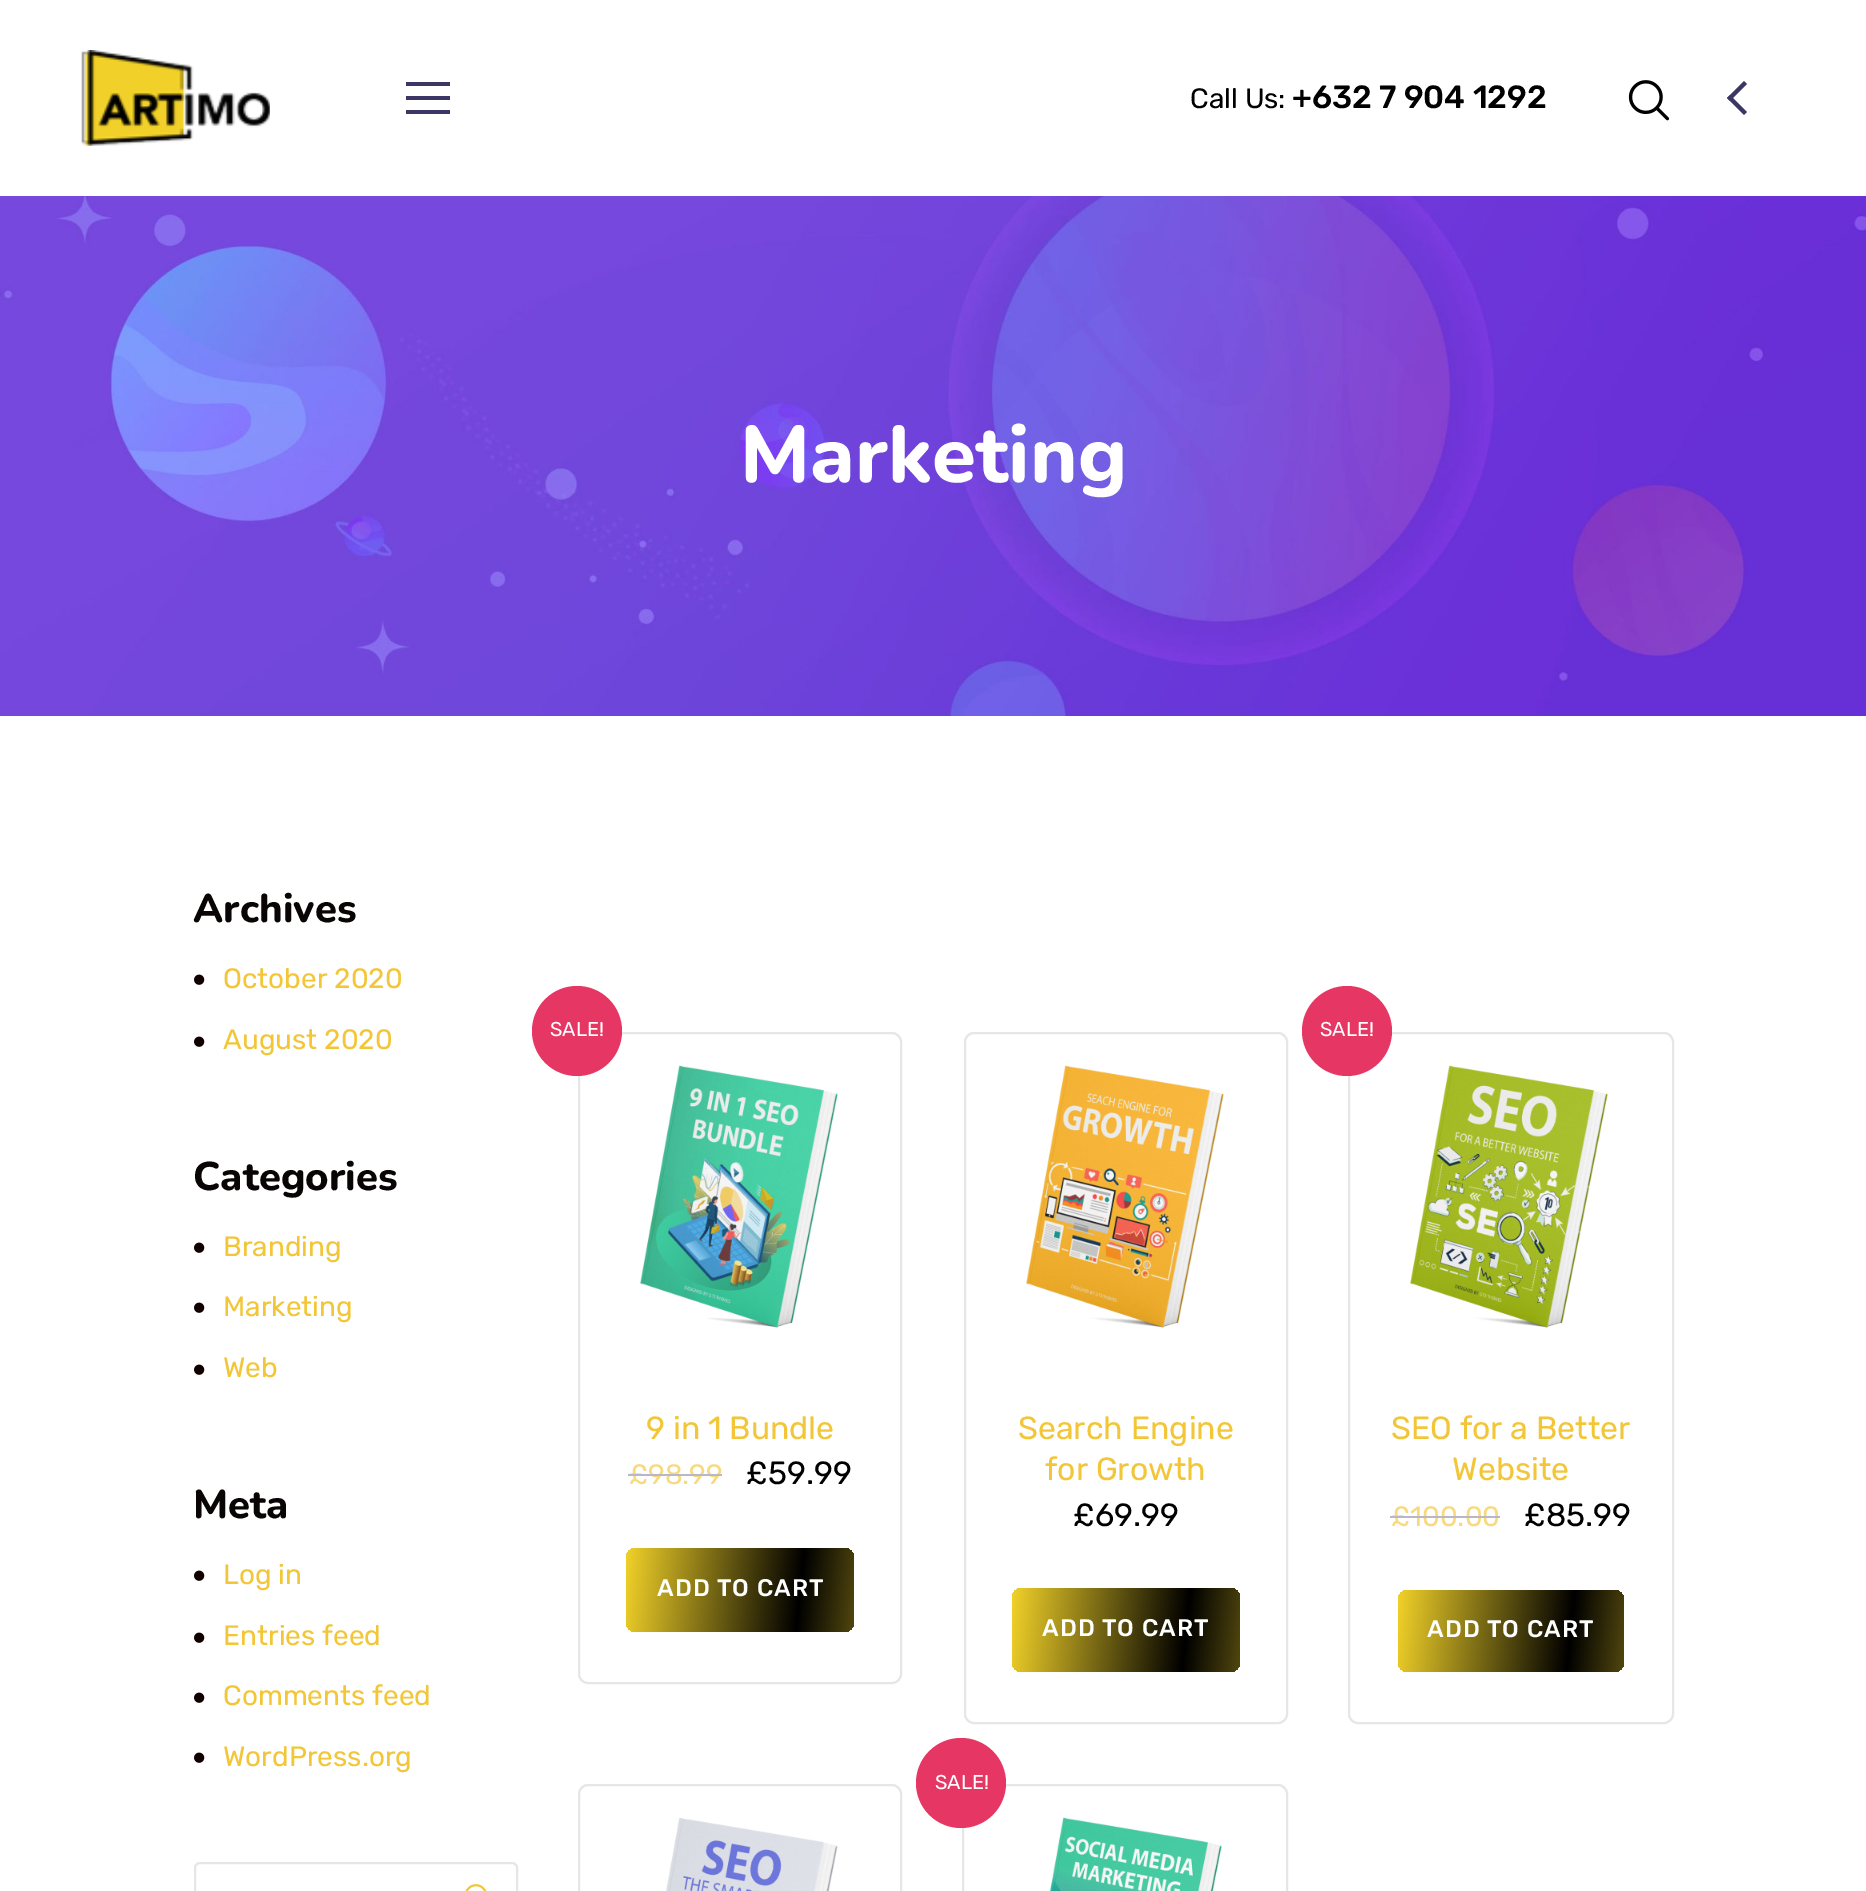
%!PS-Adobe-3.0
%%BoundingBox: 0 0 1866 1891
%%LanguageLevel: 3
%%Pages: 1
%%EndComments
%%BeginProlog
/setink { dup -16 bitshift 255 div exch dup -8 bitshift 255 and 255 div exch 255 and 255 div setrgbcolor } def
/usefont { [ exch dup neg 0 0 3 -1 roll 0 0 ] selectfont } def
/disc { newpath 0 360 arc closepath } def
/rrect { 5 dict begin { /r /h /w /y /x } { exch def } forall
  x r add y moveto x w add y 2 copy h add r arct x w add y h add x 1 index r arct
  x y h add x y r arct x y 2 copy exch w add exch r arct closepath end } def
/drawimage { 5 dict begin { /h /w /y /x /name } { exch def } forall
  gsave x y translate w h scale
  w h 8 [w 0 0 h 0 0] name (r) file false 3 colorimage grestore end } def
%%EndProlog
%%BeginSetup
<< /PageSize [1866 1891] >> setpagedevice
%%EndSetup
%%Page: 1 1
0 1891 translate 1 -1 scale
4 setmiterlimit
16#FFFFFF setink
0 0 1866 1891 rectfill
(img1.raw) 81 50 189 96 drawimage
[
    [406 96 44 4 16#3B3663]
    [406 82 44 4 16#3B3663]
    [406 110 44 4 16#3B3663]
] { aload pop setink rectfill } forall
/Rubik-Regular 28 usefont
16#000000 setink
1190 108 moveto (Call Us:) show
/Rubik-Medium 32 usefont
1292 108 moveto (+632 7 904 1292) show
(img2.raw) 1628 80 42 41 drawimage
16#3B3663 setink
1727 98 moveto 1744 81 lineto 1747 84 lineto 1730 101 lineto closepath fill
1730 95 moveto 1747 112 lineto 1744 115 lineto 1727 98 lineto closepath fill
(img3.raw) 0 196 1866 520 drawimage
/Nunito-ExtraBold 80 usefont
16#FFFFFF setink
740 482 moveto (Marketing) show
/Nunito-ExtraBold 40 usefont
16#0A0505 setink
193 922 moveto (Archives) show
(img4.raw) 194 974 11 11 drawimage
/Rubik-Regular 28 usefont
16#F2C637 setink
223 988 moveto (October 2020) show
(img4.raw) 194 1036 11 11 drawimage
223 1049 moveto (August 2020) show
/Nunito-ExtraBold 40 usefont
16#0A0505 setink
193 1190 moveto (Categories) show
(img4.raw) 194 1242 11 11 drawimage
/Rubik-Regular 28 usefont
16#F2C637 setink
223 1256 moveto (Branding) show
(img4.raw) 194 1302 11 11 drawimage
223 1316 moveto (Marketing) show
(img4.raw) 194 1364 11 11 drawimage
223 1377 moveto (Web) show
/Nunito-ExtraBold 40 usefont
16#0A0505 setink
193 1518 moveto (Meta) show
(img4.raw) 194 1570 11 11 drawimage
/Rubik-Regular 28 usefont
16#F2C637 setink
223 1584 moveto (Log in) show
(img4.raw) 194 1632 11 11 drawimage
223 1645 moveto (Entries feed) show
(img4.raw) 194 1692 11 11 drawimage
223 1705 moveto (Comments feed) show
(img4.raw) 194 1752 11 11 drawimage
223 1766 moveto (WordPress.org) show
16#E7E6E6 setink
2 setlinewidth
195 1863 322 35 5 rrect stroke
(img5.raw) 465 1884 22 7 drawimage
579 1033 322 650 9 rrect stroke
16#E63764 setink
577 1031 45 disc fill
/Rubik-Regular 20 usefont
16#FFFFFF setink
550 1036 moveto (SALE!) show
(img6.raw) 640 1065 198 263 drawimage
/Rubik-Regular 32 usefont
16#F2C637 setink
646 1439 moveto (9 in 1 Bundle) show
/Rubik-Regular 28 usefont
16#F7DA7D setink
629 1484 moveto (£98.99) show
16#B9B7C5 setink
628 1474 94 2 rectfill
/Rubik-Regular 32 usefont
16#000000 setink
746 1484 moveto (£59.99) show
gsave 626 1548 228 84 10 rrect clip newpath
<< /ShadingType 2 /ColorSpace /DeviceRGB /Coords [624 1572 970 1608] /Extend [true true] /Function << /FunctionType 3 /Domain [0 1] /Functions [<< /FunctionType 2 /Domain [0 1] /C0 [0.945 0.82 0.161] /C1 [0 0 0] /N 1 >> << /FunctionType 2 /Domain [0 1] /C0 [0 0 0] /C1 [0.945 0.82 0.161] /N 1 >>] /Bounds [0.51] /Encode [0 1 0 1] >> >> shfill grestore
/Rubik-Medium 24 usefont
16#FFFFFF setink
657 1596 moveto 1 0 (ADD TO CART) ashow
16#E7E6E6 setink
965 1033 322 690 9 rrect stroke
(img7.raw) 1026 1065 198 263 drawimage
/Rubik-Regular 32 usefont
16#F2C637 setink
1018 1439 moveto (Search Engine) show
1045 1480 moveto (for Growth) show
16#000000 setink
1073 1526 moveto (£69.99) show
gsave 1012 1588 228 84 10 rrect clip newpath
<< /ShadingType 2 /ColorSpace /DeviceRGB /Coords [1010 1612 1356 1648] /Extend [true true] /Function << /FunctionType 3 /Domain [0 1] /Functions [<< /FunctionType 2 /Domain [0 1] /C0 [0.945 0.82 0.161] /C1 [0 0 0] /N 1 >> << /FunctionType 2 /Domain [0 1] /C0 [0 0 0] /C1 [0.945 0.82 0.161] /N 1 >>] /Bounds [0.51] /Encode [0 1 0 1] >> >> shfill grestore
/Rubik-Medium 24 usefont
16#FFFFFF setink
1042 1636 moveto 1 0 (ADD TO CART) ashow
16#E7E6E6 setink
1349 1033 324 690 9 rrect stroke
16#E63764 setink
1347 1031 45 disc fill
/Rubik-Regular 20 usefont
16#FFFFFF setink
1320 1036 moveto (SALE!) show
(img8.raw) 1410 1065 198 263 drawimage
/Rubik-Regular 32 usefont
16#F2C637 setink
1391 1439 moveto (SEO for a Better) show
1452 1480 moveto (Website) show
/Rubik-Regular 28 usefont
16#F7DA7D setink
1391 1526 moveto (£100.00) show
16#B9B7C5 setink
1390 1516 110 2 rectfill
/Rubik-Regular 32 usefont
16#000000 setink
1524 1526 moveto (£85.99) show
gsave 1398 1590 226 82 10 rrect clip newpath
<< /ShadingType 2 /ColorSpace /DeviceRGB /Coords [1396 1613 1739 1649] /Extend [true true] /Function << /FunctionType 3 /Domain [0 1] /Functions [<< /FunctionType 2 /Domain [0 1] /C0 [0.945 0.82 0.161] /C1 [0 0 0] /N 1 >> << /FunctionType 2 /Domain [0 1] /C0 [0 0 0] /C1 [0.945 0.82 0.161] /N 1 >>] /Bounds [0.51] /Encode [0 1 0 1] >> >> shfill grestore
/Rubik-Medium 24 usefont
16#FFFFFF setink
1427 1637 moveto 1 0 (ADD TO CART) ashow
16#E7E6E6 setink
963 1785 324 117 9 rrect stroke
16#E63764 setink
961 1783 45 disc fill
/Rubik-Regular 20 usefont
16#FFFFFF setink
935 1789 moveto (SALE!) show
(img9.raw) 1049 1817 173 74 drawimage
16#E7E6E6 setink
579 1785 322 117 9 rrect stroke
(img10.raw) 666 1817 172 74 drawimage
showpage
%%EOF
